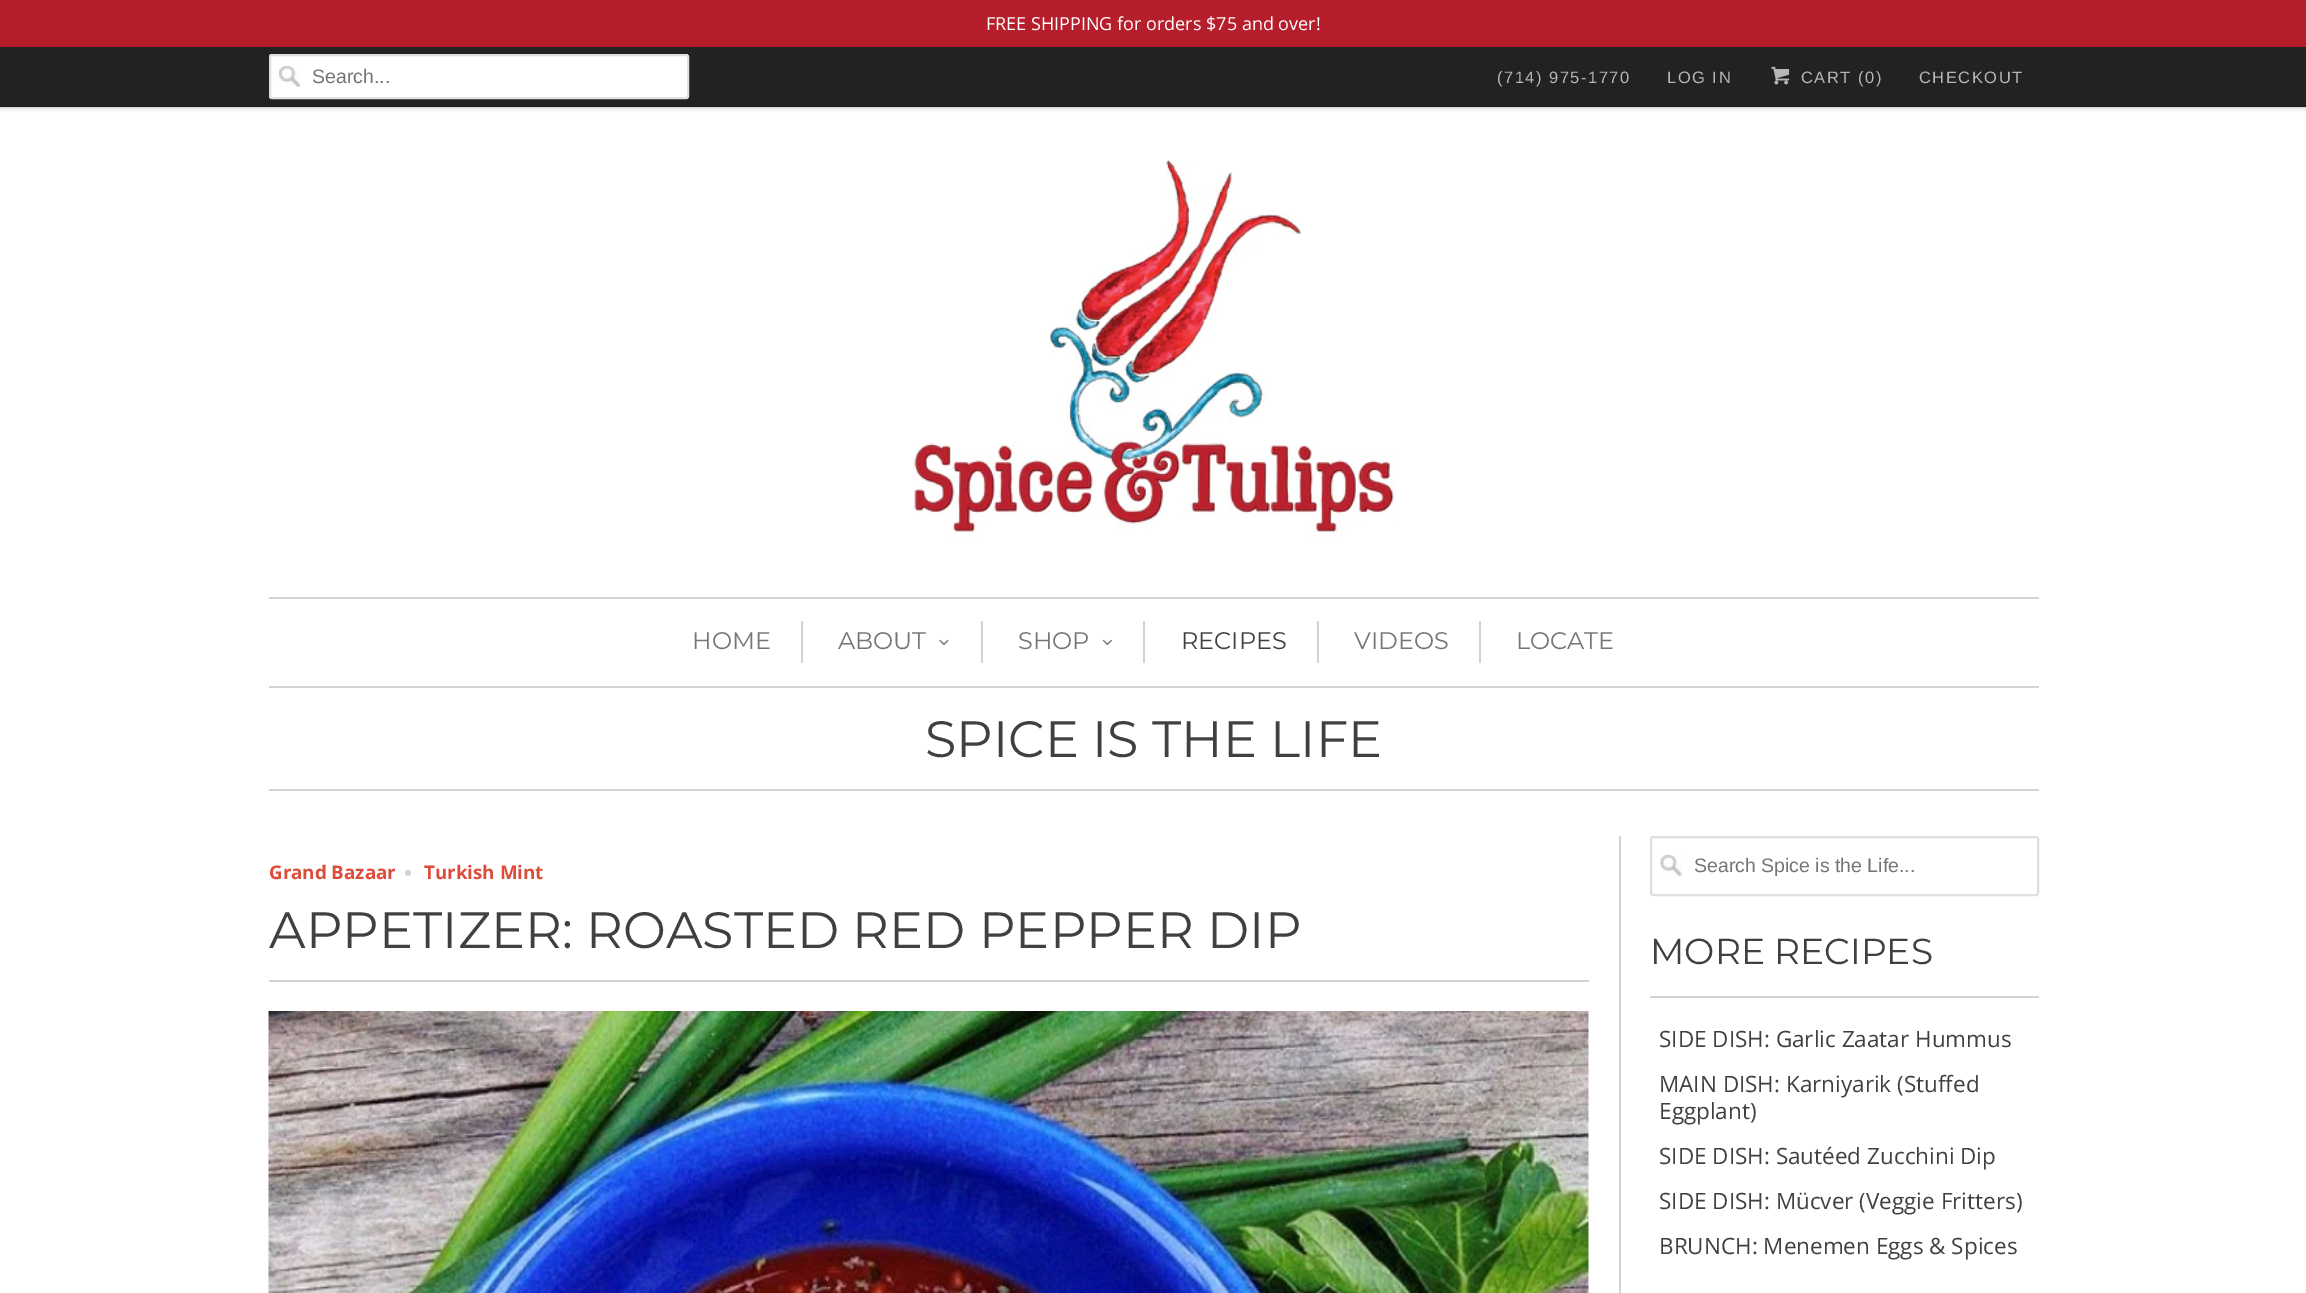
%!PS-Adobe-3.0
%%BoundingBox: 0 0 2306 1293
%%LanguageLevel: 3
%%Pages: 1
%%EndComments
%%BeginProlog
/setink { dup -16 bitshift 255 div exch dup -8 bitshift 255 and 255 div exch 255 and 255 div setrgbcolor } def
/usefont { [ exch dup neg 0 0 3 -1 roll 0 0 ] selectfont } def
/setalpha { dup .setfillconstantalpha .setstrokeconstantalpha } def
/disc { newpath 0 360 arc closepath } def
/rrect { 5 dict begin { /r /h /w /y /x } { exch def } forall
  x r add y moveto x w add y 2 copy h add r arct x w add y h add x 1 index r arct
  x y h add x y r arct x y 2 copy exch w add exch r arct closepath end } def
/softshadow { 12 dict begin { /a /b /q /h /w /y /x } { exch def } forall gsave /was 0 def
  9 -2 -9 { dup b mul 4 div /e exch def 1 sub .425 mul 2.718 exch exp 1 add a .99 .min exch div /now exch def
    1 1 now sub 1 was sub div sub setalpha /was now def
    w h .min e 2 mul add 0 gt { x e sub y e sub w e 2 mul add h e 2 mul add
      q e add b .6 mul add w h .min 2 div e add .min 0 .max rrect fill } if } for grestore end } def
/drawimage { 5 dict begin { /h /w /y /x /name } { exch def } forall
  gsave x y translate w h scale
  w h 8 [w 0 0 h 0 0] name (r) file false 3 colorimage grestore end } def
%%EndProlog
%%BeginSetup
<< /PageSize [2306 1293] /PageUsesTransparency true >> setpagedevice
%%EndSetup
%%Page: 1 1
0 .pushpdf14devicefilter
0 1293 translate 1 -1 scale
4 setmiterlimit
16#FFFFFF setink
0 0 2306 1293 rectfill
16#B71E2B setink
0 0 2306 47 rectfill
/OpenSans-Regular 18 usefont
16#FFFFFF setink
986 30 moveto (FREE SHIPPING for orders $75 and over!) show
16#000000 setink
0 48 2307 60 0 2 0.25 softshadow
16#222222 setink
0 47 2306 58 rectfill
16#1F1F1F setink
0 105 2306 2 rectfill
16#FFFFFF setink
269 54 420 45 3 rrect fill
(img1.raw) 279 66 21 21 drawimage
16#DFDFDF setink
2 setlinewidth
270 55 418 43 2 rrect stroke
/LiberationSans-Regular 19.5 usefont
16#757575 setink
312 83 moveto (Search...) show
/LiberationSans-Regular 16.5 usefont
16#B6B6B6 setink
1497 83 moveto 1.5 0 (\(714\) 975-1770) ashow
1667 83 moveto 1.5 0 (LOG IN) ashow
(img2.raw) 1771 66 19 19 drawimage
1801 83 moveto 1.5 0 (CART \(0\)) ashow
1919 83 moveto 1.5 0 (CHECKOUT) ashow
(img3.raw) 913 160 482 378 drawimage
[
    [269 597 1770 2 16#D3D3D3]
    [269 686 1770 2 16#D3D3D3]
    [801 621 2 42 16#D3D3D3]
] { aload pop setink rectfill } forall
/Montserrat-Regular 24 usefont
16#757575 setink
692 649 moveto (HOME) show
16#D3D3D3 setink
981 621 2 42 rectfill
16#757575 setink
838 649 moveto (ABOUT) show
(img4.raw) 939 639 10 6 drawimage
16#D3D3D3 setink
1143 621 2 42 rectfill
16#757575 setink
1018 649 moveto (SHOP) show
(img5.raw) 1102 639 10 7 drawimage
16#D3D3D3 setink
1317 621 2 42 rectfill
16#404040 setink
1181 649 moveto (RECIPES) show
16#D3D3D3 setink
1479 621 2 42 rectfill
16#757575 setink
1354 649 moveto (VIDEOS) show
1516 649 moveto (LOCATE) show
16#D3D3D3 setink
269 789 1770 2 rectfill
/Montserrat-Regular 51 usefont
16#404040 setink
925 757 moveto (SPICE IS THE LIFE) show
/OpenSans-Bold 18.75 usefont
16#DD4B39 setink
269 879 moveto (Grand Bazaar) show
16#CED3D3 setink
408 873 3 disc fill
16#DD4B39 setink
424 879 moveto (Turkish Mint) show
16#D3D3D3 setink
269 980 1320 2 rectfill
/Montserrat-Regular 51 usefont
16#404040 setink
269 948 moveto (APPETIZER: ROASTED RED PEPPER DIP) show
(img6.raw) 268 1011 1321 282 drawimage
16#D3D3D3 setink
1619 836 2 457 rectfill
(img7.raw) 1660 855 22 21 drawimage
16#DFDFDF setink
1651 837 387 58 2 rrect stroke
/LiberationSans-Regular 19.5 usefont
16#757575 setink
1694 872 moveto (Search Spice is the Life...) show
16#D3D3D3 setink
1650 996 389 2 rectfill
/Montserrat-Regular 36 usefont
16#404040 setink
1650 964 moveto (MORE RECIPES) show
/OpenSans-Regular 22.5 usefont
[
    [(SIDE DISH: Garlic Zaatar Hummus) 1659 1047]
    [(MAIN DISH: Karniyarik \(Stuffed) 1659 1092]
    [(Eggplant\)) 1659 1119]
    [(SIDE DISH: Sautéed Zucchini Dip) 1659 1164]
    [(SIDE DISH: Mücver \(Veggie Fritters\)) 1659 1209]
    [(BRUNCH: Menemen Eggs & Spices) 1659 1254]
] { aload pop moveto show } forall
.poppdf14devicefilter showpage
%%EOF
